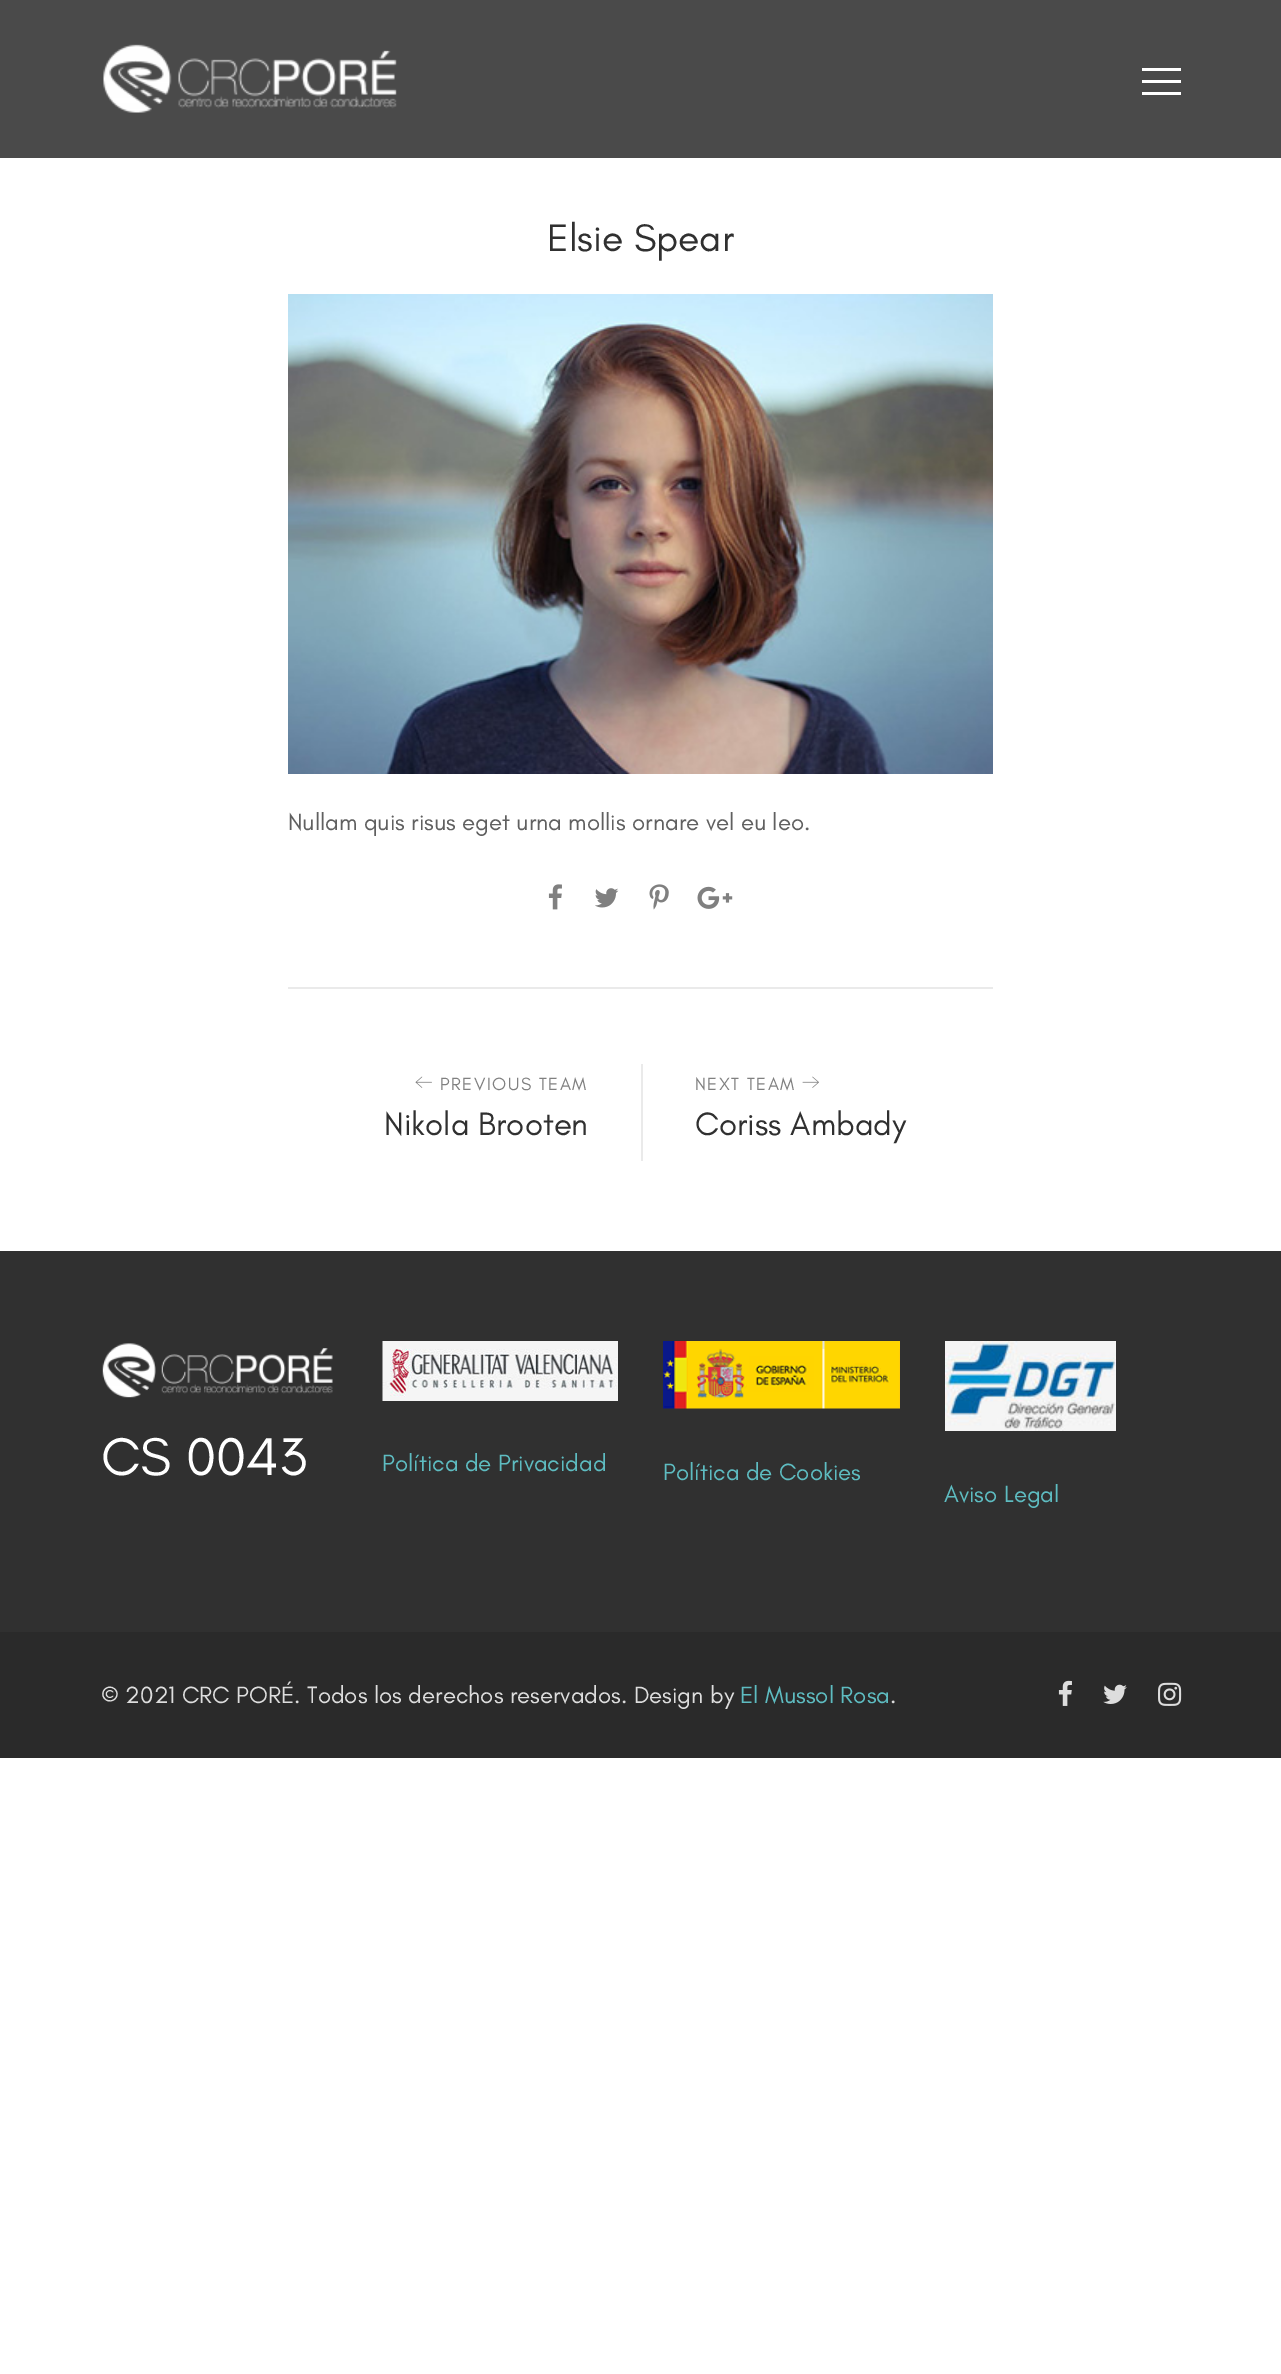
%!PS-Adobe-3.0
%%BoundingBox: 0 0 1281 2374
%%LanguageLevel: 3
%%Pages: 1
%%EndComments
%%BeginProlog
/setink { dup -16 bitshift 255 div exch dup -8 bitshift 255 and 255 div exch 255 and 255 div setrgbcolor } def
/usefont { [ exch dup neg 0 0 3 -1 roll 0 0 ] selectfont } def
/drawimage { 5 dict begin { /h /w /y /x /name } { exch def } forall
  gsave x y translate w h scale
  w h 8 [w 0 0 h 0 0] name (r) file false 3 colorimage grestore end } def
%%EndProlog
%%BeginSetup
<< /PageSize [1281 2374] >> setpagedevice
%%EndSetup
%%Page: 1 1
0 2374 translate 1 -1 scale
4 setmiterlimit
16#FFFFFF setink
0 0 1281 2374 rectfill
16#4A4A4A setink
0 0 1281 158 rectfill
(img1.raw) 103 44 294 69 drawimage
[
    [1142 80 39 3 16#FFFFFF]
    [1142 68 39 3 16#FFFFFF]
    [1142 92 39 3 16#FFFFFF]
] { aload pop setink rectfill } forall
/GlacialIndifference-Regular 39 usefont
16#303030 setink
547 251 moveto (Elsie Spear) show
(img2.raw) 288 294 705 480 drawimage
/GlacialIndifference-Regular 24 usefont
16#606060 setink
288 830 moveto (Nullam quis risus eget urna mollis ornare vel eu leo.) show
(img3.raw) 548 884 14 26 drawimage
(img4.raw) 595 888 24 20 drawimage
(img5.raw) 649 884 20 26 drawimage
(img6.raw) 697 886 36 23 drawimage
16#EAEAEA setink
288 987 705 2 rectfill
(img7.raw) 415 1076 17 12 drawimage
/GlacialIndifference-Regular 18 usefont
16#808080 setink
440 1090 moveto 1.5 0 (PREVIOUS TEAM) ashow
/GlacialIndifference-Regular 33 usefont
16#303030 setink
384 1135 moveto (Nikola Brooten) show
16#EAEAEA setink
641 1064 2 97 rectfill
/GlacialIndifference-Regular 18 usefont
16#808080 setink
695 1090 moveto 1.5 0 (NEXT TEAM) ashow
(img8.raw) 802 1076 17 12 drawimage
/GlacialIndifference-Regular 33 usefont
16#303030 setink
695 1135 moveto (Coriss Ambady) show
0 1251 1281 381 rectfill
(img9.raw) 102 1343 231 55 drawimage
/GlacialIndifference-Regular 54 usefont
16#FFFFFF setink
101 1475 moveto (CS 0043) show
(img10.raw) 382 1341 236 60 drawimage
/GlacialIndifference-Regular 24 usefont
16#5EBCC1 setink
382 1471 moveto (Política de Privacidad) show
(img11.raw) 663 1341 237 68 drawimage
663 1480 moveto (Política de Cookies) show
(img12.raw) 945 1341 171 90 drawimage
944 1502 moveto (Aviso Legal) show
16#2A2A2A setink
0 1632 1281 126 rectfill
16#DDDDDD setink
101 1703 moveto (© 2021 CRC PORÉ. Todos los derechos reservados. Design by) show
16#5EBCC1 setink
740 1703 moveto (El Mussol Rosa) show
16#DDDDDD setink
890 1703 moveto (.) show
(img13.raw) 1058 1680 14 26 drawimage
(img14.raw) 1103 1684 24 20 drawimage
(img15.raw) 1158 1682 24 24 drawimage
showpage
%%EOF
